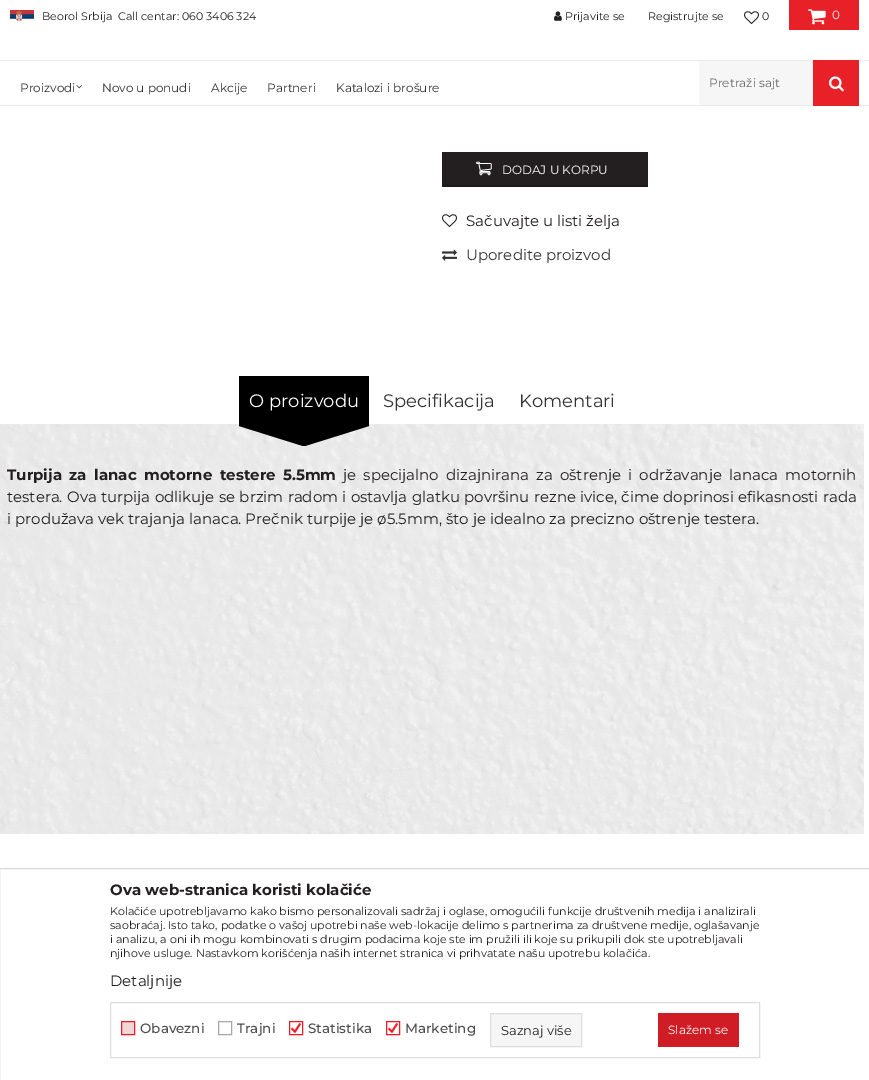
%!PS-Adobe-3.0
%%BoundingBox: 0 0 869 1080
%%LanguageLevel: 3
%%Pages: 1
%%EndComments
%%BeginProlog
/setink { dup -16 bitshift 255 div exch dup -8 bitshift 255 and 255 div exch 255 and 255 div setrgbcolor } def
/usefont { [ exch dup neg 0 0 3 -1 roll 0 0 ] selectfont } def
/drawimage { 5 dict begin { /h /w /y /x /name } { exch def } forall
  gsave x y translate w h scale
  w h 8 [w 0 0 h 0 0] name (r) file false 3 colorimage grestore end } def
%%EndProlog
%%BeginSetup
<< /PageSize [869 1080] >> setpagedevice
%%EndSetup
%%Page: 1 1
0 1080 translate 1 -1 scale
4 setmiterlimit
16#FFFFFF setink
0 0 869 1080 rectfill
(img1.raw) 10 10 24 12 drawimage
/Montserrat-Regular 11 usefont
16#231F20 setink
42 20 moveto (Beorol Srbija) show
118 20 moveto (Call centar: 060 3406 324) show
(img2.raw) 554 11 8 10 drawimage
565 20 moveto (Prijavite se) show
648 20 moveto (Registrujte se) show
(img3.raw) 744 11 15 13 drawimage
762 20 moveto (0) show
16#E82128 setink
789 0 70 30 rectfill
(img4.raw) 808 9 18 16 drawimage
/Montserrat-Regular 12 usefont
16#FFFFFF setink
832 19 moveto (0) show
16#EAEAEA setink
0 60 869 1 rectfill
0 105 869 1 rectfill
16#333333 setink
20 92 moveto (Proizvodi) show
(img5.raw) 76 85 6 4 drawimage
[
    [(Novo u ponudi) 102 92]
    [(Akcije) 211 92]
    [(Partneri) 267 92]
    [(Katalozi i brošure) 336 92]
] { aload pop moveto show } forall
16#F6F6F6 setink
699 61 114 44 rectfill
16#6B6B6B setink
709 87 moveto (Pretraži sajt) show
16#E82128 setink
813 60 46 46 rectfill
(img6.raw) 829 76 15 16 drawimage
16#231F20 setink
442 152 206 33 rectfill
16#1C191A setink
442 185 206 2 rectfill
(img7.raw) 475 161 17 15 drawimage
16#FFFFFF setink
502 174 moveto (DODAJ U KORPU) show
(img3.raw) 442 214 15 13 drawimage
/Montserrat-Regular 15 usefont
16#231F20 setink
466 226 moveto (Sačuvajte u listi želja) show
(img8.raw) 442 249 15 12 drawimage
16#333333 setink
466 260 moveto (Uporedite proizvod) show
(img9.raw) 0 424 864 410 drawimage
16#000000 setink
239 376 130 50 rectfill
/Montserrat-Regular 18 usefont
16#FFFFFF setink
249 407 moveto (O proizvodu) show
16#000000 setink
239 426 moveto 369 426 lineto 305 446 lineto 303 446 lineto closepath fill
16#333333 setink
383 407 moveto (Specifikacija) show
519 407 moveto (Komentari) show
/Montserrat-Bold 15 usefont
16#231F20 setink
7 480 moveto 3.25 0 32 (Turpija za lanac motorne testere 5.5mm) widthshow
/Montserrat-Regular 15 usefont
343 480 moveto 3.25 0 32 (je specijalno dizajnirana za oštrenje i održavanje lanaca motornih) widthshow
7 502 moveto 0.4 0 32 (testera. Ova turpija odlikuje se brzim radom i ostavlja glatku površinu rezne ivice, čime doprinosi efikasnosti rada) widthshow
7 524 moveto (i produžava vek trajanja lanaca. Prečnik turpije je ø5.5mm, što je idealno za precizno oštrenje testera.) show
16#D9D9D9 setink
-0.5 868.5 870 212 rectstroke
/Montserrat-Bold 15 usefont
16#231F20 setink
110 895 moveto (Ova web-stranica koristi kolačiće) show
/Montserrat-Regular 11 usefont
[
    [(Kolačiće upotrebljavamo kako bismo personalizovali sadržaj i oglase, omogućili funkcije društvenih medija i analizirali) 110 915]
    [(saobraćaj. Isto tako, podatke o vašoj upotrebi naše web-lokacije delimo s partnerima za društvene medije, oglašavanje) 110 929]
    [(i analizu, a oni ih mogu kombinovati s drugim podacima koje ste im pružili ili koje su prikupili dok ste upotrebljavali) 110 943]
    [(njihove usluge. Nastavkom korišćenja naših internet stranica vi prihvatate našu upotrebu kolačića.) 110 957]
] { aload pop moveto show } forall
/Montserrat-Regular 15 usefont
110 986 moveto (Detaljnije) show
16#DEDEDE setink
110.5 1002.5 649 55 rectstroke
16#F0D6D6 setink
121.5 1021.5 moveto 134.5 1021.5 lineto 134.5 1034.5 lineto 121.5 1034.5 lineto closepath gsave fill grestore
16#ED1C24 setink
stroke
/Montserrat-Medium 13.5 usefont
16#4D4D4D setink
140 1033 moveto (Obavezni) show
16#A7A7A7 setink
218.5 1021.5 13 13 rectstroke
16#4D4D4D setink
237 1033 moveto (Trajni) show
(img10.raw) 291 1023 10 10 drawimage
16#ED1C24 setink
289.5 1021.5 13 13 rectstroke
16#4D4D4D setink
308 1033 moveto (Statistika) show
(img10.raw) 388 1023 10 10 drawimage
16#ED1C24 setink
386.5 1021.5 13 13 rectstroke
16#4D4D4D setink
405 1033 moveto (Marketing) show
16#F6F6F6 setink
490.5 1013.5 moveto 581.5 1013.5 lineto 581.5 1046.5 lineto 490.5 1046.5 lineto closepath gsave fill grestore
16#DEDEDE setink
stroke
/Montserrat-Regular 13 usefont
16#231F20 setink
501 1035 moveto (Saznaj više) show
16#D01C24 setink
658 1013 81 34 rectfill
/Montserrat-Regular 12 usefont
16#FFFFFF setink
668 1034 moveto (Slažem se) show
showpage
%%EOF
